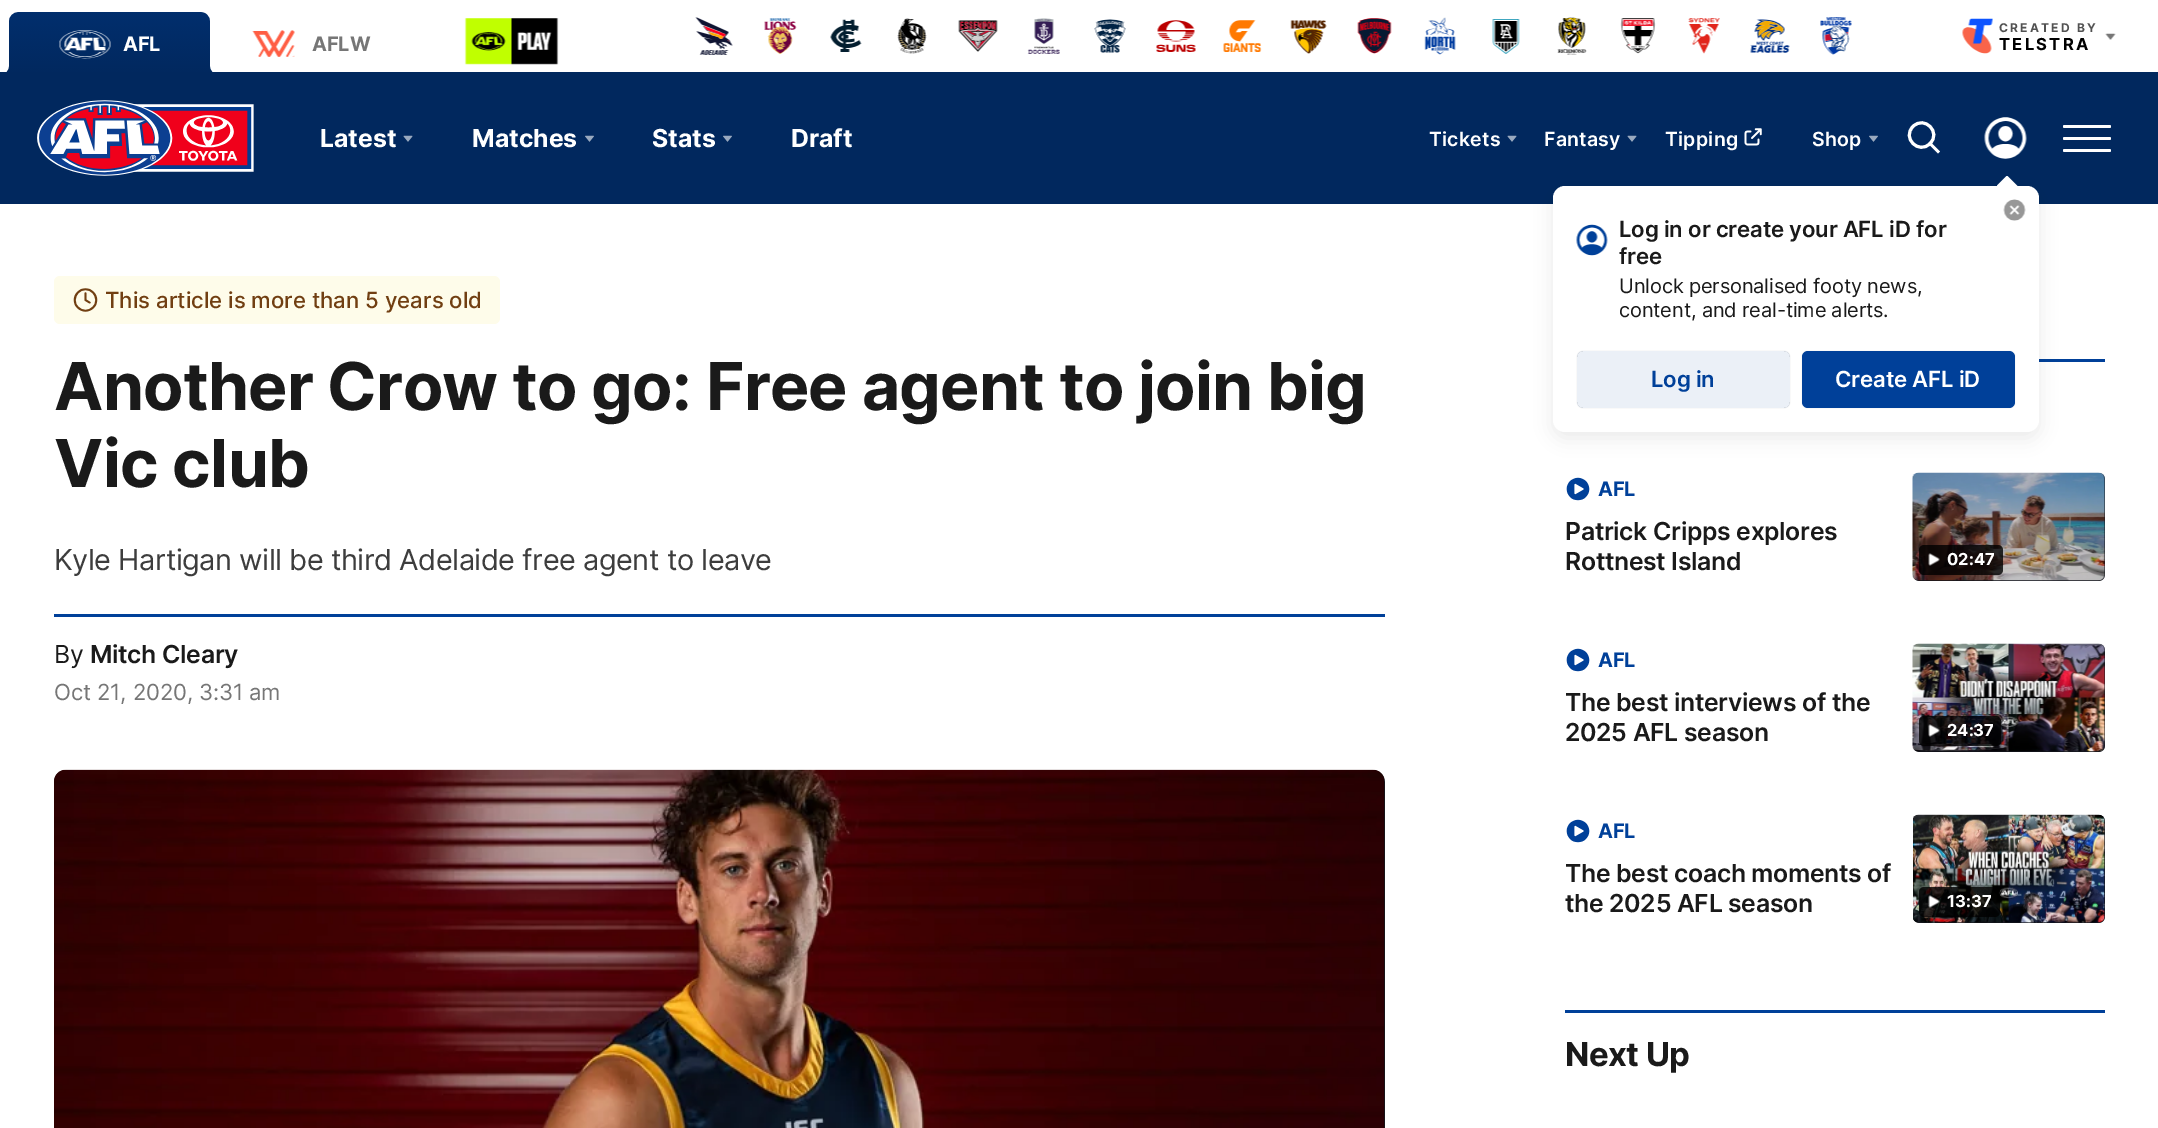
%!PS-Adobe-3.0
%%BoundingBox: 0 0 2158 1128
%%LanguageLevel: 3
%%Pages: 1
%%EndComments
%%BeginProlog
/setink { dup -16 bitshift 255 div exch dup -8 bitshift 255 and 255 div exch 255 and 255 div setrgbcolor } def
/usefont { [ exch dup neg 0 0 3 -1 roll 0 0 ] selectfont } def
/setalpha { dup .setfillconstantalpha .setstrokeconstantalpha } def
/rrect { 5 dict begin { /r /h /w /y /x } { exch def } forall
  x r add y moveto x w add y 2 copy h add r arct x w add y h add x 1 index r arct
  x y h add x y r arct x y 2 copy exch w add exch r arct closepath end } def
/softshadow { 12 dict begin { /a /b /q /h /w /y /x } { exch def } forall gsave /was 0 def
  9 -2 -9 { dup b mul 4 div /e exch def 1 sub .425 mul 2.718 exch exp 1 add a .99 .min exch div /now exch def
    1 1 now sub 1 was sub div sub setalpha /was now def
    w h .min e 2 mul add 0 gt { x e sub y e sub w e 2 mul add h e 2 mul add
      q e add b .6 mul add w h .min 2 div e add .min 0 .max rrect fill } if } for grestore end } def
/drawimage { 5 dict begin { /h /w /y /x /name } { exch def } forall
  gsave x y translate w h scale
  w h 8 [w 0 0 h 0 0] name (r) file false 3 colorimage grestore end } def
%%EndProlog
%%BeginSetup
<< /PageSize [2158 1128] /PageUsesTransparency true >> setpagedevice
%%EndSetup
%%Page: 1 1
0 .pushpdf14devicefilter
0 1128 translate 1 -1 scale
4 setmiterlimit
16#FFFFFF setink
0 0 2158 1128 rectfill
(img1.raw) 6 12 207 60 drawimage
(img2.raw) 59 30 52 29 drawimage
/Inter-Bold 20 usefont
123 51 moveto -0.15 0 (AFL) ashow
(img3.raw) 252 30 43 27 drawimage
16#767676 setink
312 51 moveto -0.15 0 (AFLW) ashow
(img4.raw) 464 18 95 47 drawimage
(img5.raw) 695 17 38 38 drawimage
(img6.raw) 764 18 33 36 drawimage
(img7.raw) 830 19 32 33 drawimage
(img8.raw) 897 18 30 36 drawimage
(img9.raw) 958 20 40 32 drawimage
(img10.raw) 1027 18 33 36 drawimage
(img11.raw) 1094 19 32 34 drawimage
(img12.raw) 1156 20 40 32 drawimage
(img13.raw) 1223 20 39 32 drawimage
(img14.raw) 1290 20 37 34 drawimage
(img15.raw) 1357 18 35 36 drawimage
(img16.raw) 1424 17 32 38 drawimage
(img17.raw) 1492 19 28 35 drawimage
(img18.raw) 1557 17 30 38 drawimage
(img19.raw) 1620 18 36 36 drawimage
(img20.raw) 1688 18 32 36 drawimage
(img21.raw) 1750 19 40 34 drawimage
(img22.raw) 1820 17 32 38 drawimage
(img23.raw) 1962 18 31 36 drawimage
/Inter-Bold 12 usefont
16#525252 setink
1999 32 moveto 2.25 0 (CREATED BY) ashow
/Inter-Bold 16.5 usefont
16#000000 setink
1999 50 moveto 2.25 0 (TELSTRA) ashow
(img24.raw) 2105 33 11 7 drawimage
16#01285E setink
0 72 2158 132 rectfill
(img25.raw) 37 100 217 76 drawimage
/Inter-Bold 24.75 usefont
16#FFFFFF setink
320 147 moveto (Latest) show
(img26.raw) 403 135 10 7 drawimage
472 147 moveto (Matches) show
(img27.raw) 585 135 9 7 drawimage
652 147 moveto (Stats) show
(img27.raw) 723 135 9 7 drawimage
791 147 moveto (Draft) show
/Inter-SemiBold 19.5 usefont
1429 146 moveto 0.25 0 (Tickets) ashow
(img26.raw) 1507 135 10 7 drawimage
1544 146 moveto 0.25 0 (Fantasy) ashow
(img26.raw) 1627 135 10 7 drawimage
1665 146 moveto 0.25 0 (Tipping) ashow
(img28.raw) 1744 128 18 18 drawimage
1812 146 moveto 0.25 0 (Shop) ashow
(img27.raw) 1869 135 9 7 drawimage
3 setlinewidth
1913 126.5 moveto 1924.5 115 1941.5 132.5 1930 143.5 curveto 1919 155 1901.5 138 1913 126.5 curveto closepath stroke
1928 143.5 moveto 1930 141.5 lineto 1940 151.5 lineto 1938 153.5 lineto closepath fill
2063 125 48 3 1.5 rrect fill
2063 137 48 3 1.5 rrect fill
2063 149 48 3 1.5 rrect fill
(img29.raw) 1984 117 43 42 drawimage
16#004099 setink
2039 359 66 3 rectfill
16#000000 setink
1553 192 486 246 12 9 0.08 softshadow
16#FFFFFF setink
1997 185.5 moveto 2006.5 176 lineto 2007.5 176 lineto 2017.5 186 lineto 1997 186 lineto closepath fill
1553 186 486 246 12 rrect fill
(img30.raw) 2003 199 23 22 drawimage
(img31.raw) 1576 224 32 32 drawimage
/Inter-SemiBold 22.2 usefont
16#1A1A1A setink
1619 237 moveto -0.15 0 (Log in or create your AFL iD for) ashow
1619 264 moveto -0.15 0 (free) ashow
/Inter-Regular 20 usefont
1619 293 moveto -0.15 0 (Unlock personalised footy news,) ashow
1619 317 moveto -0.15 0 (content, and real-time alerts.) ashow
gsave
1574 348 moveto 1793 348 lineto 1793 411 lineto 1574 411 lineto closepath 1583 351 moveto 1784 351 lineto 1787.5 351 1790 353.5 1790 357 curveto 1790 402 lineto 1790 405.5 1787.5 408 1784 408 curveto 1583 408 lineto 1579.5 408 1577 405.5 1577 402 curveto 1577 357 lineto 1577 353.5 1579.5 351 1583 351 curveto closepath eoclip newpath
16#000000 setink
1577 351 213 57 6 0.5 0.1 softshadow
grestore
0.08 setalpha
16#004099 setink
1577 351 213 57 6 rrect fill
/Inter-SemiBold 22.2 usefont
1 setalpha
1651 387 moveto -0.15 0 (Log in) ashow
16#000000 setink
1802 351 213 57 6 0.5 0.1 softshadow
16#004099 setink
1802 351 213 57 6 rrect fill
16#FFFFFF setink
1835 387 moveto -0.15 0 (Create AFL iD) ashow
16#FEFCEA setink
54 276 446 48 6 rrect fill
(img32.raw) 73 288 25 24 drawimage
/Inter-Medium 22.2 usefont
16#713F12 setink
105 308 moveto (This article is more than 5 years old) show
/Inter-Bold 66 usefont
16#1A1A1A setink
54 410 moveto -0.75 0 (Another Crow to go: Free agent to join big) ashow
54 487 moveto -0.75 0 (Vic club) ashow
/Inter-Regular 28.9 usefont
16#3D3D3D setink
54 570 moveto -0.45 0 (Kyle Hartigan will be third Adelaide free agent to leave) ashow
16#004099 setink
54 614 1331 3 rectfill
/Inter-Regular 24.75 usefont
16#1A1A1A setink
54 663 moveto -0.3 0 (By) ashow
/Inter-SemiBold 24.75 usefont
90 663 moveto -0.3 0 (Mitch Cleary) ashow
/Inter-Regular 22.2 usefont
16#767676 setink
54 700 moveto -0.15 0 (Oct 21, 2020, 3:31 am) ashow
16#14161C setink
66 770 moveto 1373 770 lineto 1379.5 770 1385 775.5 1385 782 curveto 1385 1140 lineto 54 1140 lineto 54 782 lineto 54 775.5 59.5 770 66 770 curveto closepath fill
(img33.raw) 54 769 1331 359 drawimage
(img34.raw) 1566 477 24 24 drawimage
/Inter-Bold 20 usefont
16#004099 setink
1598 496 moveto -0.15 0 (AFL) ashow
/Inter-SemiBold 24.75 usefont
16#1A1A1A setink
1565 540 moveto -0.3 0 (Patrick Cripps explores) ashow
1565 570 moveto -0.3 0 (Rottnest Island) ashow
16#14161C setink
1913 473 192 108 6 rrect fill
(img35.raw) 1912 472 193 109 drawimage
0.8 setalpha
16#000000 setink
1919 545 84 30 5 rrect fill
1 setalpha
(img36.raw) 1928 553 12 13 drawimage
/Inter-Bold 16.5 usefont
16#FFFFFF setink
1947 565 moveto (02:47) show
(img34.raw) 1566 648 24 24 drawimage
/Inter-Bold 20 usefont
16#004099 setink
1598 667 moveto -0.15 0 (AFL) ashow
/Inter-SemiBold 24.75 usefont
16#1A1A1A setink
1565 711 moveto -0.3 0 (The best interviews of the) ashow
1565 741 moveto -0.3 0 (2025 AFL season) ashow
16#14161C setink
1913 644 192 108 6 rrect fill
(img37.raw) 1912 643 193 109 drawimage
0.8 setalpha
16#000000 setink
1919 716 82 30 5 rrect fill
1 setalpha
(img38.raw) 1928 724 12 13 drawimage
/Inter-Bold 16.5 usefont
16#FFFFFF setink
1947 736 moveto (24:37) show
(img34.raw) 1566 819 24 24 drawimage
/Inter-Bold 20 usefont
16#004099 setink
1598 838 moveto -0.15 0 (AFL) ashow
/Inter-SemiBold 24.75 usefont
16#1A1A1A setink
1565 882 moveto -0.3 0 (The best coach moments of) ashow
1565 912 moveto -0.3 0 (the 2025 AFL season) ashow
16#14161C setink
1913 815 192 108 6 rrect fill
(img39.raw) 1913 814 192 109 drawimage
0.8 setalpha
16#000000 setink
1919 887 81 30 5 rrect fill
1 setalpha
(img40.raw) 1928 895 12 13 drawimage
/Inter-Bold 16.5 usefont
16#FFFFFF setink
1947 907 moveto (13:37) show
16#004099 setink
1565 1010 540 3 rectfill
/Inter-Bold 33 usefont
16#1A1A1A setink
1565 1066 moveto -0.5 0 (Next Up) ashow
.poppdf14devicefilter showpage
%%EOF
